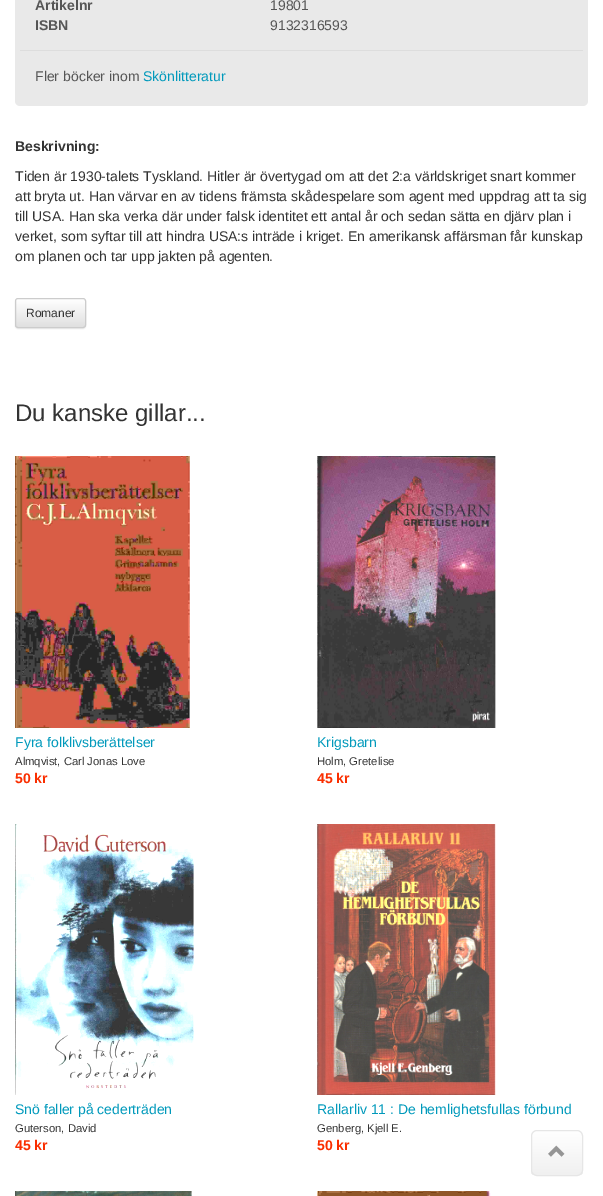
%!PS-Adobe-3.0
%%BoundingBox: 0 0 603 1196
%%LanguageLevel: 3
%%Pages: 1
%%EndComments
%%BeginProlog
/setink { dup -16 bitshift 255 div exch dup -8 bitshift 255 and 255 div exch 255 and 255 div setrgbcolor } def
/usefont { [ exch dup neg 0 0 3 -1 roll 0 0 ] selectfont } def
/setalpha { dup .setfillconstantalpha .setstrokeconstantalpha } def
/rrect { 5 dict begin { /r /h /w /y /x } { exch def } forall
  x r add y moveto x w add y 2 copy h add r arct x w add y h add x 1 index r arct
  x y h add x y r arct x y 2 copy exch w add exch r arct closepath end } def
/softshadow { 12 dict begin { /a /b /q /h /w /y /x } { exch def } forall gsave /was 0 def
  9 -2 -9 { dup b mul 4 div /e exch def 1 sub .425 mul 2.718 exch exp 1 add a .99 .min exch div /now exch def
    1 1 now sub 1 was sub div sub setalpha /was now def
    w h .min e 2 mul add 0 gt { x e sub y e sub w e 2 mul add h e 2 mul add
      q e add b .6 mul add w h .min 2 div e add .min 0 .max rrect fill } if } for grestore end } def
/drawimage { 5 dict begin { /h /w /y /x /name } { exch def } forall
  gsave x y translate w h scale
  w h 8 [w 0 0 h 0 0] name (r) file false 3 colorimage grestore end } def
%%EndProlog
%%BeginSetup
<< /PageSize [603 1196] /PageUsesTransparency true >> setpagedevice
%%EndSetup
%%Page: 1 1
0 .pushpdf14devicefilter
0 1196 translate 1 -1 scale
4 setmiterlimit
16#FFFFFF setink
0 0 603 1196 rectfill
16#E9E9E9 setink
15 -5 573 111 5 rrect fill
/LiberationSans-Bold 14 usefont
16#555555 setink
35 10 moveto (Artikelnr) show
/LiberationSans-Regular 14 usefont
270 10 moveto (19801) show
/LiberationSans-Bold 14 usefont
35 30 moveto (ISBN) show
/LiberationSans-Regular 14 usefont
270 30 moveto (9132316593) show
16#DDDDDD setink
20 50 563 1 rectfill
16#555555 setink
35 81 moveto (Fler böcker inom) show
16#0099BB setink
143 81 moveto (Skönlitteratur) show
/LiberationSans-Bold 14 usefont
16#333333 setink
15 151 moveto (Beskrivning:) show
/LiberationSans-Regular 14 usefont
[
    [(Tiden är 1930-talets Tyskland. Hitler är övertygad om att det 2:a världskriget snart kommer) 15 181]
    [(att bryta ut. Han värvar en av tidens främsta skådespelare som agent med uppdrag att ta sig) 15 201]
    [(till USA. Han ska verka där under falsk identitet ett antal år och sedan sätta en djärv plan i) 15 221]
    [(verket, som syftar till att hindra USA:s inträde i kriget. En amerikansk affärsman får kunskap) 15 241]
    [(om planen och tar upp jakten på agenten.) 15 261]
] { aload pop moveto show } forall
16#000000 setink
15 299 71 30 3 0.5 0.07 softshadow
gsave
15 298 71 30 3 rrect clip newpath
gsave 15 299 moveto 86 299 lineto 86 327 lineto 15 327 lineto closepath clip newpath
<< /ShadingType 2 /ColorSpace /DeviceRGB /Coords [51 299 51 327] /Extend [true true] /Function << /FunctionType 2 /Domain [0 1] /C0 [1 1 1] /C1 [0.878 0.878 0.878] /N 1 >> >> shfill grestore
grestore
16#CCCCCC setink
15.5 298.5 70 29 2.5 rrect stroke
/LiberationSans-Regular 12 usefont
16#333333 setink
26 317 moveto (Romaner) show
/LiberationSans-Regular 24 usefont
15 421 moveto (Du kanske gillar...) show
(img1.raw) 15 456 175 272 drawimage
/LiberationSans-Regular 14 usefont
16#0099BB setink
15 747 moveto (Fyra folklivsberättelser) show
/LiberationSans-Regular 11.25 usefont
16#333333 setink
15 765 moveto (Almqvist, Carl Jonas Love) show
/LiberationSans-Bold 14 usefont
16#FA2E00 setink
15 783 moveto (50 kr) show
(img2.raw) 317 456 179 272 drawimage
/LiberationSans-Regular 14 usefont
16#0099BB setink
317 747 moveto (Krigsbarn) show
/LiberationSans-Regular 11.25 usefont
16#333333 setink
317 765 moveto (Holm, Gretelise) show
/LiberationSans-Bold 14 usefont
16#FA2E00 setink
317 783 moveto (45 kr) show
(img3.raw) 15 824 179 271 drawimage
/LiberationSans-Regular 14 usefont
16#0099BB setink
15 1114 moveto (Snö faller på cederträden) show
/LiberationSans-Regular 11.25 usefont
16#333333 setink
15 1132 moveto (Guterson, David) show
/LiberationSans-Bold 14 usefont
16#FA2E00 setink
15 1150 moveto (45 kr) show
(img4.raw) 317 824 179 271 drawimage
/LiberationSans-Regular 14 usefont
16#0099BB setink
317 1114 moveto (Rallarliv 11 : De hemlighetsfullas förbund) show
/LiberationSans-Regular 11.25 usefont
16#333333 setink
317 1132 moveto (Genberg, Kjell E.) show
/LiberationSans-Bold 14 usefont
16#FA2E00 setink
317 1150 moveto (50 kr) show
(img5.raw) 15 1191 177 5 drawimage
(img6.raw) 317 1191 174 5 drawimage
gsave
531 1130 52 46 6 rrect clip newpath
gsave 531 1131 moveto 583 1131 lineto 583 1175 lineto 531 1175 lineto closepath clip newpath
<< /ShadingType 2 /ColorSpace /DeviceRGB /Coords [557 1131 557 1175] /Extend [true true] /Function << /FunctionType 2 /Domain [0 1] /C0 [1 1 1] /C1 [0.941 0.941 0.941] /N 1 >> >> shfill grestore
grestore
16#E6E6E6 setink
531.5 1130.5 51 45 5.5 rrect stroke
(img7.raw) 548 1145 17 12 drawimage
.poppdf14devicefilter showpage
%%EOF
